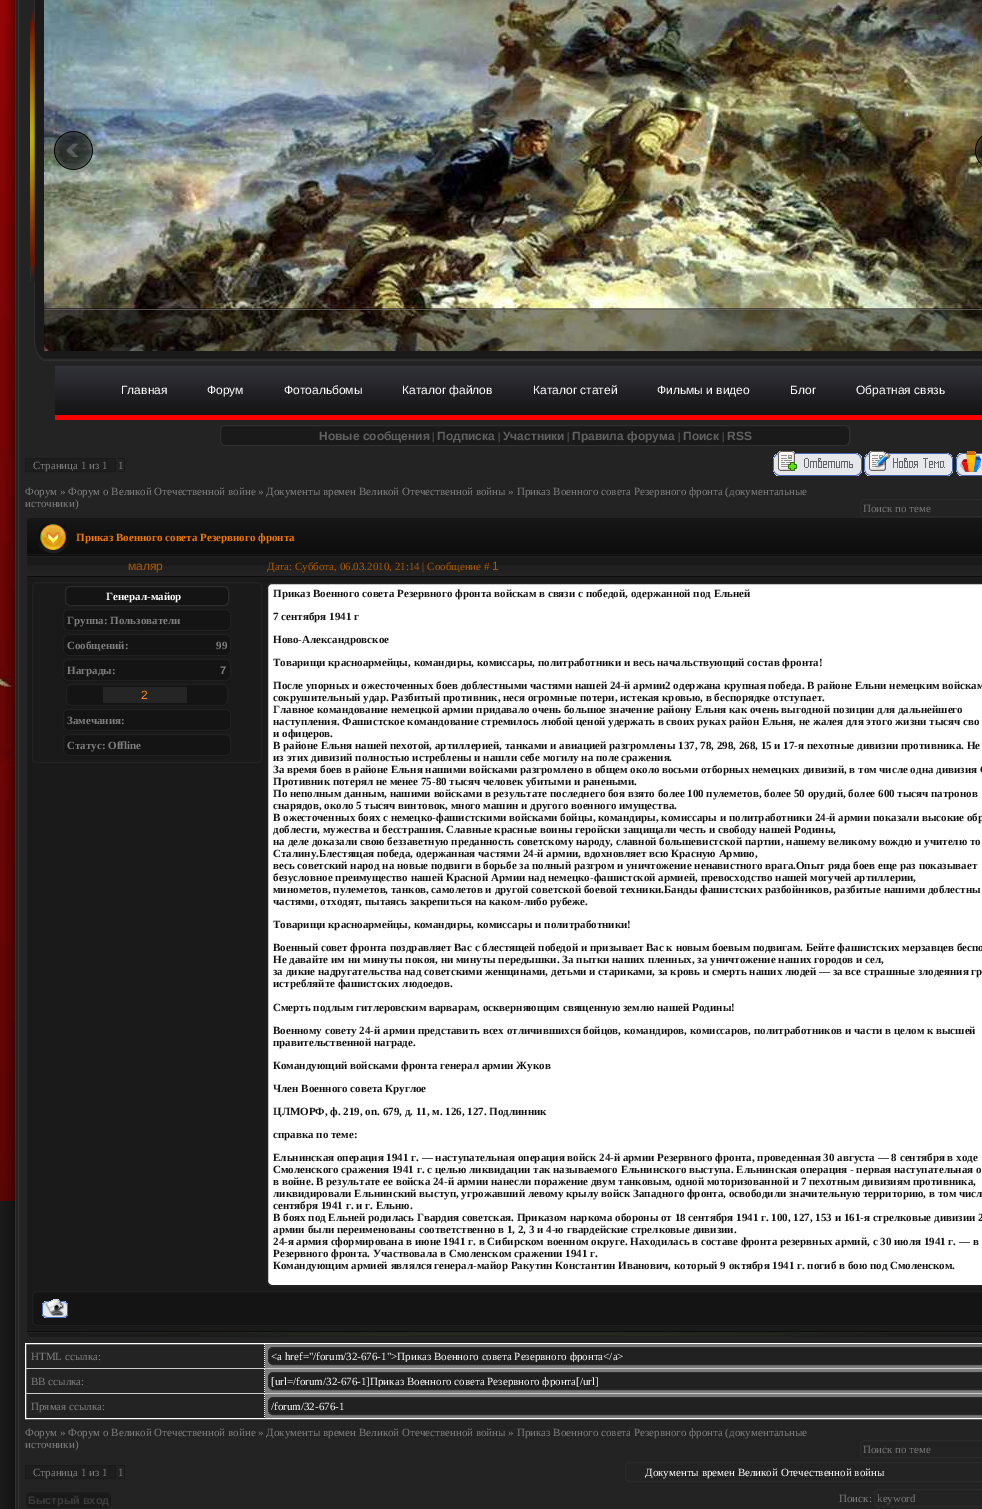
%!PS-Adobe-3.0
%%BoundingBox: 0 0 982 1509
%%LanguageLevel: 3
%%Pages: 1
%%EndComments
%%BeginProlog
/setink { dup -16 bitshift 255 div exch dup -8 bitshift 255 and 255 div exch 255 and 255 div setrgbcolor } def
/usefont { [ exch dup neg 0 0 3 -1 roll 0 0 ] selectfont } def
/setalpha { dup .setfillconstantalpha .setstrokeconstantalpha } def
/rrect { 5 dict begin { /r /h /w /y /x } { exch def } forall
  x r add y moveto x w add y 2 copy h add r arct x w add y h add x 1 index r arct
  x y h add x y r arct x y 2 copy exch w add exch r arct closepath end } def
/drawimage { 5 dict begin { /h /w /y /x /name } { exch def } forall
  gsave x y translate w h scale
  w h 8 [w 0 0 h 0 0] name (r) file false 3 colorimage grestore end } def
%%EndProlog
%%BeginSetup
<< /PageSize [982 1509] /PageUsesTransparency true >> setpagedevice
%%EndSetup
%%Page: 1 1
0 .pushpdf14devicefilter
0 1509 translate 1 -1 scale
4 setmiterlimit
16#1A1A1A setink
0 0 982 1509 rectfill
(img1.raw) 0 0 15 1201 drawimage
(img2.raw) 3 0 979 1509 drawimage
(img3.raw) 30 0 952 361 drawimage
(img4.raw) 44 0 938 351 drawimage
(img5.raw) 54 131 39 39 drawimage
(img6.raw) 975 135 7 31 drawimage
(img7.raw) 44 308 938 43 drawimage
0.8 setalpha
16#676565 setink
44 309 938 1 rectfill
1 setalpha
gsave 55 366 moveto 982 366 lineto 982 415 lineto 55 415 lineto closepath clip newpath
<< /ShadingType 2 /ColorSpace /DeviceRGB /Coords [535 366 535 415] /Extend [true true] /Function << /FunctionType 2 /Domain [0 1] /C0 [0.196 0.196 0.227] /C1 [0.078 0.078 0.078] /N 1 >> >> shfill grestore
16#FF0001 setink
55 415 927 5 rectfill
/LiberationSans-Regular 12 usefont
16#FFFFFF setink
[
    [(Главная) 121 394]
    [(Форум) 207 394]
    [(Фотоальбомы) 284 394]
    [(Каталог файлов) 402 394]
    [(Каталог статей) 533 394]
    [(Фильмы и видео) 657 394]
    [(Блог) 790 394]
    [(Обратная связь) 856 394]
] { aload pop moveto show } forall
16#1A1A1A setink
220.5 425.5 629 20 4.5 rrect gsave fill grestore
16#2E2E2E setink
stroke
/LiberationSans-Bold 12 usefont
16#616161 setink
319 440 moveto (Новые сообщения) show
/LiberationSerif-Bold 11 usefont
432 440 moveto (|) show
/LiberationSans-Bold 12 usefont
437 440 moveto (Подписка) show
/LiberationSerif-Bold 11 usefont
498 440 moveto (|) show
/LiberationSans-Bold 12 usefont
503 440 moveto (Участники) show
/LiberationSerif-Bold 11 usefont
567 440 moveto (|) show
/LiberationSans-Bold 12 usefont
572 440 moveto (Правила форума) show
/LiberationSerif-Bold 11 usefont
678 440 moveto (|) show
/LiberationSans-Bold 12 usefont
683 440 moveto (Поиск) show
/LiberationSerif-Bold 11 usefont
722 440 moveto (|) show
/LiberationSans-Bold 12 usefont
727 440 moveto (RSS) show
16#1E1E1E setink
25.5 458.5 moveto 115.5 458.5 lineto 115.5 471.5 lineto 25.5 471.5 lineto closepath gsave fill grestore
16#1A1A1A setink
stroke
/LiberationSerif-Regular 11 usefont
16#7E7E7E setink
33 469 moveto (Страница 1 из 1) show
[
    [118 458 7 1 16#1A1A1A]
    [124 458 1 14 16#1A1A1A]
    [118 471 7 1 16#1A1A1A]
] { aload pop setink rectfill } forall
16#7E7E7E setink
118 469 moveto (1) show
(img8.raw) 773 451 89 25 drawimage
(img9.raw) 864 451 89 25 drawimage
(img10.raw) 956 451 26 25 drawimage
25 495 moveto (Форум » Форум о Великой Отечественной войне » Документы времен Великой Отечественной войны » Приказ Военного совета Резервного фронта \(документальные) show
25 507 moveto (источники\)) show
16#2A2A2A setink
860.5 499.5 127 17 4.5 rrect stroke
16#757575 setink
863 512 moveto (Поиск по теме) show
(img11.raw) 28 1333 954 4 drawimage
(img12.raw) 27 518 955 38 drawimage
(img13.raw) 38 524 31 29 drawimage
/LiberationSerif-Bold 11 usefont
16#ED7700 setink
76 541 moveto (Приказ Военного совета Резервного фронта) show
16#1A1A1A setink
27 557 955 774 rectfill
(img14.raw) 27 565 235 12 drawimage
/LiberationSans-Regular 12 usefont
16#AF5800 setink
128 570 moveto (маляр) show
(img15.raw) 262 565 720 12 drawimage
/LiberationSerif-Regular 11 usefont
267 570 moveto (Дата: Суббота, 06.03.2010, 21:14 | Сообщение #) show
/LiberationSans-Regular 12 usefont
492 570 moveto (1) show
16#222222 setink
32.5 582.5 229 180 4.5 rrect stroke
16#141414 setink
65.5 586.5 163 19 4.5 rrect gsave fill grestore
16#2B2B2B setink
stroke
/LiberationSerif-Bold 11 usefont
16#FFFFFF setink
106 600 moveto (Генерал-майор) show
16#141414 setink
63 626 moveto 63 627 lineto 63 630 65 632 68 632 curveto 226 632 lineto 229 632 231 630 231 627 curveto 231 626 lineto 231 629 229 631 226 631 curveto 68 631 lineto 65 631 63 629 63 626 curveto closepath fill
63.5 609.5 167 21 4.5 rrect gsave fill grestore
16#202020 setink
stroke
16#7E7E7E setink
67 624 moveto (Группа: Пользователи) show
16#141414 setink
63 651 moveto 63 652 lineto 63 655 65 657 68 657 curveto 226 657 lineto 229 657 231 655 231 652 curveto 231 651 lineto 231 654 229 656 226 656 curveto 68 656 lineto 65 656 63 654 63 651 curveto closepath fill
63.5 634.5 167 21 4.5 rrect gsave fill grestore
16#202020 setink
stroke
16#7E7E7E setink
67 649 moveto (Сообщений:) show
216 649 moveto (99) show
16#141414 setink
63 676 moveto 63 677 lineto 63 680 65 682 68 682 curveto 226 682 lineto 229 682 231 680 231 677 curveto 231 676 lineto 231 679 229 681 226 681 curveto 68 681 lineto 65 681 63 679 63 676 curveto closepath fill
63.5 659.5 167 21 4.5 rrect gsave fill grestore
16#202020 setink
stroke
16#7E7E7E setink
67 674 moveto (Награды:) show
/LiberationSans-Bold 11 usefont
220 674 moveto (7) show
16#141414 setink
66 701 moveto 66 702 lineto 66 705 68 707 71 707 curveto 223 707 lineto 226 707 228 705 228 702 curveto 228 701 lineto 228 704 226 706 223 706 curveto 71 706 lineto 68 706 66 704 66 701 curveto closepath fill
66.5 684.5 161 21 4.5 rrect gsave fill grestore
16#202020 setink
stroke
16#252525 setink
103 687 84 16 rectfill
/LiberationSans-Regular 12 usefont
16#F6891E setink
141 699 moveto (2) show
16#141414 setink
63 726 moveto 63 727 lineto 63 730 65 732 68 732 curveto 226 732 lineto 229 732 231 730 231 727 curveto 231 726 lineto 231 729 229 731 226 731 curveto 68 731 lineto 65 731 63 729 63 726 curveto closepath fill
63.5 709.5 167 21 4.5 rrect gsave fill grestore
16#202020 setink
stroke
/LiberationSerif-Bold 11 usefont
16#7E7E7E setink
67 724 moveto (Замечания:) show
16#141414 setink
63 751 moveto 63 752 lineto 63 755 65 757 68 757 curveto 226 757 lineto 229 757 231 755 231 752 curveto 231 751 lineto 231 754 229 756 226 756 curveto 68 756 lineto 65 756 63 754 63 751 curveto closepath fill
63.5 734.5 167 21 4.5 rrect gsave fill grestore
16#202020 setink
stroke
16#7E7E7E setink
67 749 moveto (Статус: Offline) show
16#FFFFFF setink
267.5 583.5 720 702 4.5 rrect gsave fill grestore
16#222222 setink
stroke
16#141414 setink
[
    [(Приказ Военного совета Резервного фронта войскам в связи с победой, одержанной под Ельней) 273 597]
    [(7 сентября 1941 г) 273 620]
    [(Ново-Александровское) 273 643]
    [(Товарищи красноармейцы, командиры, комиссары, политработники и весь начальствующий состав фронта!) 273 666]
    [(После упорных и ожесточенных боев доблестными частями нашей 24-й армии2 одержана крупная победа. В районе Ельни немецким войскам) 273 689]
    [(сокрушительный удар. Разбитый противник, неся огромные потери, истекая кровью, в беспорядке отступает.) 273 701]
    [(Главное командование немецкой армии придавало очень большое значение району Ельня как очень выгодной позиции для дальнейшего) 273 713]
    [(наступления. Фашистское командование стремилось любой ценой удержать в своих руках район Ельня, не жалея для этого жизни тысяч сво) 273 725]
    [(и офицеров.) 273 737]
    [(В районе Ельня нашей пехотой, артиллерией, танками и авиацией разгромлены 137, 78, 298, 268, 15 и 17-я пехотные дивизии противника. Не) 273 749]
    [(из этих дивизий полностью истреблены и нашли себе могилу на поле сражения.) 273 761]
    [(За время боев в районе Ельня нашими войсками разгромлено в общем около восьми отборных немецких дивизий, в том числе одна дивизия С) 273 773]
    [(Противник потерял не менее 75-80 тысяч человек убитыми и ранеными.) 273 785]
    [(По неполным данным, нашими войсками в результате последнего боя взято более 100 пулеметов, более 50 орудий, более 600 тысяч патронов) 273 797]
    [(снарядов, около 5 тысяч винтовок, много машин и другого военного имущества.) 273 809]
    [(В ожесточенных боях с немецко-фашистскими войсками бойцы, командиры, комиссары и политработники 24-й армии показали высокие обр) 273 821]
    [(доблести, мужества и бесстрашия. Славные красные воины геройски защищали честь и свободу нашей Родины,) 273 833]
    [(на деле доказали свою беззаветную преданность советскому народу, славной большевистской партии, нашему великому вождю и учителю то) 273 845]
    [(Сталину.Блестящая победа, одержанная частями 24-й армии, вдохновляет всю Красную Армию,) 273 857]
    [(весь советский народ на новые подвиги в борьбе за полный разгром и уничтожение ненавистного врага.Опыт ряда боев еще раз показывает) 273 869]
    [(безусловное преимущество нашей Красной Армии над немецко-фашистской армией, превосходство нашей могучей артиллерии,) 273 881]
    [(минометов, пулеметов, танков, самолетов и другой советской боевой техники.Банды фашистских разбойников, разбитые нашими доблестны) 273 893]
    [(частями, отходят, пытаясь закрепиться на каком-либо рубеже.) 273 905]
    [(Товарищи красноармейцы, командиры, комиссары и политработники!) 273 928]
    [(Военный совет фронта поздравляет Вас с блестящей победой и призывает Вас к новым боевым подвигам. Бейте фашистских мерзавцев беспо) 273 951]
    [(Не давайте им ни минуты покоя, ни минуты передышки. За пытки наших пленных, за уничтожение наших городов и сел,) 273 963]
    [(за дикие надругательства над советскими женщинами, детьми и стариками, за кровь и смерть наших людей — за все страшные злодеяния гр) 273 975]
    [(истребляйте фашистских людоедов.) 273 987]
    [(Смерть подлым гитлеровским варварам, оскверняющим священную землю нашей Родины!) 273 1011]
    [(Военному совету 24-й армии представить всех отличившихся бойцов, командиров, комиссаров, политработников и части в целом к высшей) 273 1034]
    [(правительственной награде.) 273 1046]
    [(Командующий войсками фронта генерал армии Жуков) 273 1069]
    [(Член Военного совета Круглое) 273 1092]
    [(ЦЛМОРФ, ф. 219, on. 679, д. 11, м. 126, 127. Подлинник) 273 1115]
    [(справка по теме:) 273 1138]
    [(Ельнинская операция 1941 г. — наступательная операция войск 24-й армии Резервного фронта, проведенная 30 августа — 8 сентября в ходе) 273 1161]
    [(Смоленского сражения 1941 г. с целью ликвидации так называемого Ельнинского выступа. Ельнинская операция - первая наступательная о) 273 1173]
    [(в войне. В результате ее войска 24-й армии нанесли поражение двум танковым, одной моторизованной и 7 пехотным дивизиям противника,) 273 1185]
    [(ликвидировали Ельнинский выступ, угрожавший левому крылу войск Западного фронта, освободили значительную территорию, в том числ) 273 1197]
    [(сентября 1941 г. и г. Ельню.) 273 1209]
    [(В боях под Ельней родилась Гвардия советская. Приказом наркома обороны от 18 сентября 1941 г. 100, 127, 153 и 161-я стрелковые дивизии 2) 273 1221]
    [(армии были переименованы соответственно в 1, 2, 3 и 4-ю гвардейские стрелковые дивизии.) 273 1233]
    [(24-я армия сформирована в июне 1941 г. в Сибирском военном округе. Находилась в составе фронта резервных армий, с 30 июля 1941 г. — в) 273 1245]
    [(Резервного фронта. Участвовала в Смоленском сражении 1941 г.) 273 1257]
    [(Командующим армией являлся генерал-майор Ракутин Константин Иванович, который 9 октября 1941 г. погиб в бою под Смоленском.) 273 1269]
] { aload pop moveto show } forall
32 1321 moveto 32 1324 34 1327 37 1327 curveto 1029 1327 lineto 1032 1327 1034 1324 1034 1321 curveto 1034 1324 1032 1326 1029 1326 curveto 37 1326 lineto 34 1326 32 1324 32 1321 curveto closepath fill
32.5 1291.5 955 34 4.5 rrect gsave fill grestore
16#202020 setink
stroke
(img16.raw) 42 1299 26 19 drawimage
16#0D0D0D setink
27 1331 955 1 rectfill
16#FFFFFF setink
25.5 1343.5 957 75 rectstroke
[1 1] 0 setdash
264.5 1344 moveto 264.5 1369 lineto stroke
16#CCCCCC setink
26 1368 956 1 rectfill
/LiberationSerif-Regular 11 usefont
16#7E7E7E setink
31 1360 moveto (HTML ссылка:) show
16#7D7D7D setink
265 1344 717 24 rectfill
16#212121 setink
268.5 1347.5 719 17 4.5 rrect gsave fill grestore
16#2A2A2A setink
[] 0 setdash
stroke
gsave
271 1350 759 12 rectclip
16#FFFFFF setink
271 1360 moveto (<a href="/forum/32-676-1">Приказ Военного совета Резервного фронта</a>) show
grestore
16#FFFFFF setink
[1 1] 0 setdash
264.5 1369 moveto 264.5 1394 lineto stroke
16#CCCCCC setink
26 1393 956 1 rectfill
16#7E7E7E setink
31 1385 moveto (BB ссылка:) show
16#7D7D7D setink
265 1369 717 24 rectfill
16#212121 setink
268.5 1372.5 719 17 4.5 rrect gsave fill grestore
16#2A2A2A setink
[] 0 setdash
stroke
gsave
271 1375 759 12 rectclip
16#FFFFFF setink
271 1385 moveto ([url=/forum/32-676-1]Приказ Военного совета Резервного фронта[/url]) show
grestore
16#FFFFFF setink
[1 1] 0 setdash
264.5 1394 moveto 264.5 1418 lineto stroke
16#7E7E7E setink
31 1410 moveto (Прямая ссылка:) show
16#7D7D7D setink
265 1394 717 24 rectfill
16#212121 setink
268.5 1397.5 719 17 4.5 rrect gsave fill grestore
16#2A2A2A setink
[] 0 setdash
stroke
16#FFFFFF setink
271 1410 moveto (/forum/32-676-1) show
16#7E7E7E setink
25 1436 moveto (Форум » Форум о Великой Отечественной войне » Документы времен Великой Отечественной войны » Приказ Военного совета Резервного фронта \(документальные) show
25 1448 moveto (источники\)) show
16#2A2A2A setink
860.5 1440.5 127 17 4.5 rrect stroke
16#757575 setink
863 1453 moveto (Поиск по теме) show
16#1E1E1E setink
25.5 1465.5 moveto 115.5 1465.5 lineto 115.5 1478.5 lineto 25.5 1478.5 lineto closepath gsave fill grestore
16#1A1A1A setink
stroke
16#7E7E7E setink
33 1476 moveto (Страница 1 из 1) show
[
    [118 1465 7 1 16#1A1A1A]
    [124 1465 1 14 16#1A1A1A]
    [118 1478 7 1 16#1A1A1A]
] { aload pop setink rectfill } forall
16#7E7E7E setink
118 1476 moveto (1) show
16#2A2A2A setink
625.5 1462.5 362 19 4.5 rrect stroke
16#FFFFFF setink
645 1476 moveto (Документы времен Великой Отечественной войны) show
16#1A1A1A setink
25.5 1491.5 86 17 4.5 rrect gsave fill grestore
16#232323 setink
stroke
/LiberationSans-Bold 11 usefont
16#3C3C3C setink
28 1504 moveto (Быстрый вход) show
/LiberationSerif-Regular 11 usefont
16#7E7E7E setink
839 1502 moveto (Поиск:) show
16#2A2A2A setink
874.5 1489.5 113 17 4.5 rrect stroke
16#757575 setink
877 1502 moveto (keyword) show
.poppdf14devicefilter showpage
%%EOF
